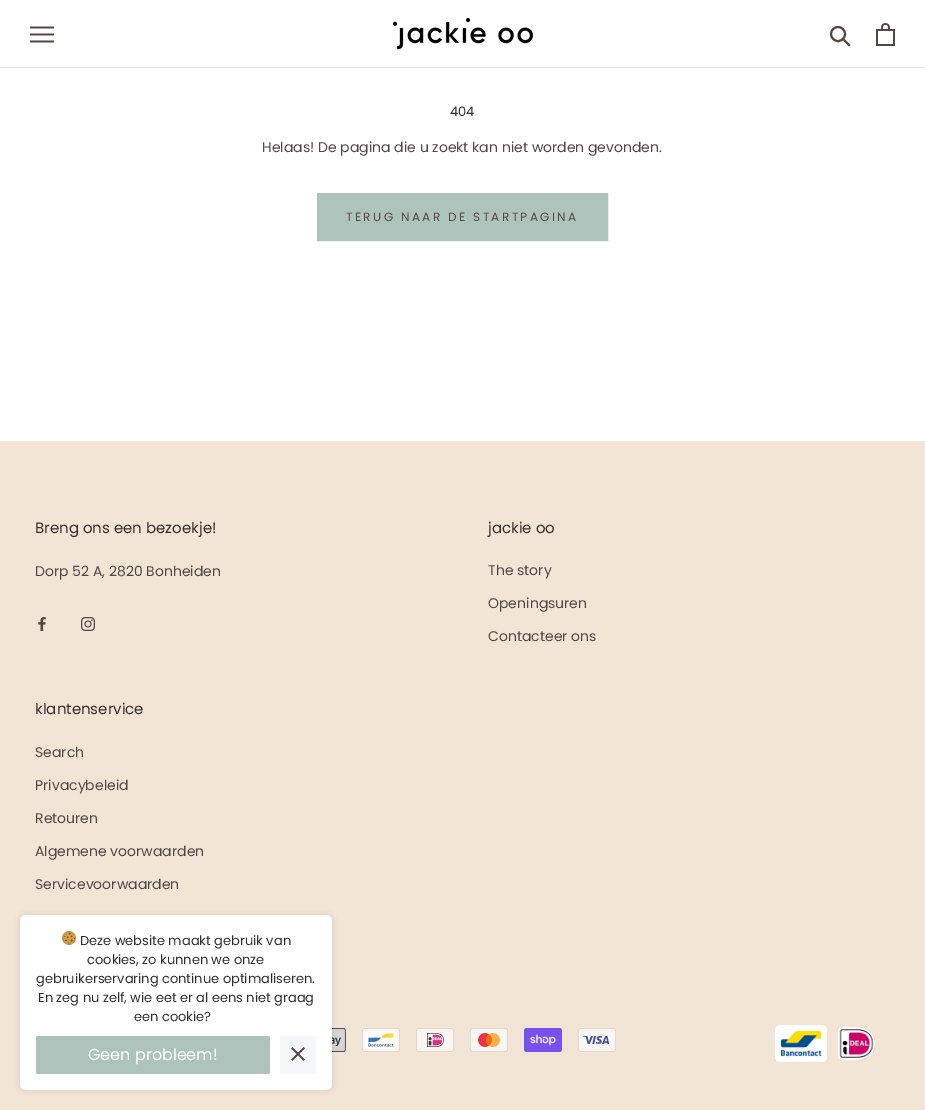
%!PS-Adobe-3.0
%%BoundingBox: 0 0 925 1110
%%LanguageLevel: 3
%%Pages: 1
%%EndComments
%%BeginProlog
/setink { dup -16 bitshift 255 div exch dup -8 bitshift 255 and 255 div exch 255 and 255 div setrgbcolor } def
/usefont { [ exch dup neg 0 0 3 -1 roll 0 0 ] selectfont } def
/setalpha { dup .setfillconstantalpha .setstrokeconstantalpha } def
/disc { newpath 0 360 arc closepath } def
/rrect { 5 dict begin { /r /h /w /y /x } { exch def } forall
  x r add y moveto x w add y 2 copy h add r arct x w add y h add x 1 index r arct
  x y h add x y r arct x y 2 copy exch w add exch r arct closepath end } def
/softshadow { 12 dict begin { /a /b /q /h /w /y /x } { exch def } forall gsave /was 0 def
  9 -2 -9 { dup b mul 4 div /e exch def 1 sub .425 mul 2.718 exch exp 1 add a .99 .min exch div /now exch def
    1 1 now sub 1 was sub div sub setalpha /was now def
    w h .min e 2 mul add 0 gt { x e sub y e sub w e 2 mul add h e 2 mul add
      q e add b .6 mul add w h .min 2 div e add .min 0 .max rrect fill } if } for grestore end } def
/drawimage { 5 dict begin { /h /w /y /x /name } { exch def } forall
  gsave x y translate w h scale
  w h 8 [w 0 0 h 0 0] name (r) file false 3 colorimage grestore end } def
%%EndProlog
%%BeginSetup
<< /PageSize [925 1110] /PageUsesTransparency true >> setpagedevice
%%EndSetup
%%Page: 1 1
0 .pushpdf14devicefilter
0 1110 translate 1 -1 scale
4 setmiterlimit
16#FFFFFF setink
0 0 925 1110 rectfill
16#E5E4E3 setink
0 67 925 1 rectfill
(img1.raw) 30 26 24 17 drawimage
(img2.raw) 393 18 140 32 drawimage
16#4F4844 setink
2 setlinewidth
2 setlinecap
849 45 moveto 843.5 39.5 lineto stroke
0 setlinecap
838 34 7 disc stroke
(img3.raw) 876 23 19 23 drawimage
/Poppins-Regular 13 usefont
16#352F2B setink
450 116 moveto (404) show
/Poppins-Regular 14 usefont
16#4F4844 setink
262 152 moveto (Helaas! De pagina die u zoekt kan niet worden gevonden.) show
16#ADC3BB setink
1 setlinewidth
317.5 193.5 290 47 rectstroke
318 194 289 46 rectfill
/Poppins-Regular 12 usefont
16#4F4844 setink
346 221 moveto 2.4 0 (TERUG NAAR DE STARTPAGINA) ashow
16#F3E5D5 setink
0 441 925 669 rectfill
/Poppins-Regular 15 usefont
16#352F2B setink
35 533 moveto (Breng ons een bezoekje!) show
/Poppins-Regular 14 usefont
16#4F4844 setink
35 576 moveto (Dorp 52 A, 2820 Bonheiden) show
(img4.raw) 38 617 8 14 drawimage
(img5.raw) 81 617 14 14 drawimage
/Poppins-Regular 15 usefont
16#352F2B setink
488 533 moveto (jackie oo) show
/Poppins-Regular 14 usefont
16#4F4844 setink
[
    [(The story) 488 575]
    [(Openingsuren) 488 608]
    [(Contacteer ons) 488 641]
] { aload pop moveto show } forall
/Poppins-Regular 15 usefont
16#352F2B setink
35 714 moveto (klantenservice) show
/Poppins-Regular 14 usefont
16#4F4844 setink
[
    [(Search) 35 757]
    [(Privacybeleid) 35 790]
    [(Retouren) 35 823]
    [(Algemene voorwaarden) 35 856]
    [(Servicevoorwaarden) 35 889]
] { aload pop moveto show } forall
(img6.raw) 332 1028 14 24 drawimage
(img7.raw) 362 1028 38 24 drawimage
(img8.raw) 416 1028 38 24 drawimage
(img9.raw) 470 1028 38 24 drawimage
(img10.raw) 524 1028 38 24 drawimage
(img11.raw) 578 1028 38 24 drawimage
(img12.raw) 775 1025 100 37 drawimage
16#FFFFFF setink
20 915 312 175 5 rrect fill
gsave
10 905 moveto 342 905 lineto 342 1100 lineto 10 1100 lineto closepath 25 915 moveto 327 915 lineto 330 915 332 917 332 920 curveto 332 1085 lineto 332 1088 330 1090 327 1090 curveto 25 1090 lineto 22 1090 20 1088 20 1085 curveto 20 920 lineto 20 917 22 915 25 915 curveto closepath eoclip newpath
16#000000 setink
20 915 312 175 5 3 0.12 softshadow
grestore
(img13.raw) 62 931 14 14 drawimage
/Poppins-Regular 13 usefont
16#2D2D2D setink
[
    [(Deze website maakt gebruik van) 80 945]
    [(cookies, zo kunnen we onze) 87 964]
    [(gebruikerservaring continue optimaliseren.) 36 983]
    [(En zeg nu zelf, wie eet er al eens niet graag) 38 1002]
    [(een cookie?) 134 1021]
] { aload pop moveto show } forall
16#ADC3BB setink
36 1036 234 38 2 rrect fill
/Poppins-Regular 16 usefont
16#FFFFFF setink
88 1060 moveto (Geen probleem!) show
16#F4F6F8 setink
280 1036 36 38 2 rrect fill
(img14.raw) 291 1047 14 14 drawimage
.poppdf14devicefilter showpage
%%EOF
